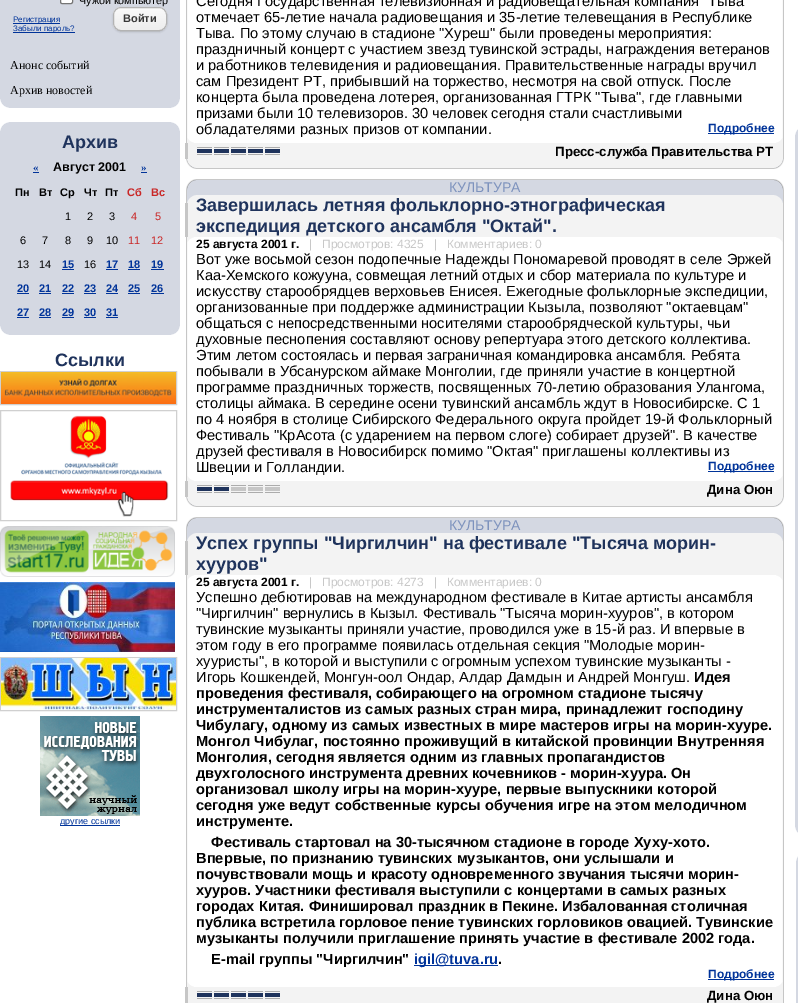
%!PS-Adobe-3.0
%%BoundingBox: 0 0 798 1003
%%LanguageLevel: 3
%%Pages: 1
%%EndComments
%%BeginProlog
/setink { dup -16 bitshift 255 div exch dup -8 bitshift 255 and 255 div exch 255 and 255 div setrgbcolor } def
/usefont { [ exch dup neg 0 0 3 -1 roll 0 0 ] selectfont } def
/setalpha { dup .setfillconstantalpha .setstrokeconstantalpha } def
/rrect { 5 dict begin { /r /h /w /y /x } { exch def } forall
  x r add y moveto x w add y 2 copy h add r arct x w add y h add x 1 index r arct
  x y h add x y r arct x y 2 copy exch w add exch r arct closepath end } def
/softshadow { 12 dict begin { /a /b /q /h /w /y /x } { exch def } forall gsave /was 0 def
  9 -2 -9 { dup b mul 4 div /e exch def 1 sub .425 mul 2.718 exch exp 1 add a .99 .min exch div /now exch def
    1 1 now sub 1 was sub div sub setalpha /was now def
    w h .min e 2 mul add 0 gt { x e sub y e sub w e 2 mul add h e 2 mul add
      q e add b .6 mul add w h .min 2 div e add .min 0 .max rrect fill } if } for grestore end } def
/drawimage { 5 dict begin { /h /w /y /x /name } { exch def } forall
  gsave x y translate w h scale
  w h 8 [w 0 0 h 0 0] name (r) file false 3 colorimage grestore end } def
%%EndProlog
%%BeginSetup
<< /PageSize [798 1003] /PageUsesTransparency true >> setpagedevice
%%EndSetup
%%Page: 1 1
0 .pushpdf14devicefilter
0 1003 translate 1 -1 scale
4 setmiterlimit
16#FFFFFF setink
0 0 798 1003 rectfill
16#D4D8E2 setink
0 0 180 108 rectfill
16#FFFFFF setink
60.5 -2.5 12 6 1.5 rrect gsave fill grestore
16#767676 setink
stroke
/LiberationSans-Regular 10.75 usefont
16#000000 setink
79 4 moveto (Чужой компьютер) show
16#003399 setink
13 23 47 1 rectfill
/LiberationSans-Regular 8 usefont
13 22 moveto (Регистрация) show
13 32 62 1 rectfill
13 31 moveto (Забыли пароль?) show
16#000000 setink
116 11 48 18 5 2 1 softshadow
(img1.raw) 113 7 54 23 drawimage
16#B3B3B3 setink
113.5 7.5 53 23 7.5 rrect stroke
/LiberationSans-Bold 11 usefont
16#383838 setink
123 22 moveto (Войти) show
/LiberationSerif-Regular 12 usefont
16#000000 setink
10 69 moveto (Анонс событий) show
10 94 moveto (Архив новостей) show
(img2.raw) 0 99 9 9 drawimage
(img3.raw) 171 99 9 9 drawimage
16#D4D8E2 setink
0 122 180 213 rectfill
(img4.raw) 0 122 9 9 drawimage
(img5.raw) 171 122 9 9 drawimage
/LiberationSans-Bold 18 usefont
16#1F335C setink
62 148 moveto (Архив) show
/LiberationSerif-Bold 11 usefont
16#003399 setink
33 171 moveto («) show
33 172 6 1 rectfill
/LiberationSans-Bold 12.5 usefont
16#000000 setink
53 171 moveto (Август 2001) show
/LiberationSerif-Bold 11 usefont
16#003399 setink
141 171 moveto (») show
141 172 6 1 rectfill
/LiberationSans-Bold 11 usefont
16#000000 setink
[
    [(Пн) 15 196]
    [(Вт) 39 196]
    [(Ср) 60 196]
    [(Чт) 84 196]
    [(Пт) 105 196]
] { aload pop moveto show } forall
16#C92727 setink
127 196 moveto (Сб) show
151 196 moveto (Вс) show
/LiberationSans-Regular 11 usefont
16#000000 setink
[
    [(1) 65 220]
    [(2) 87 220]
    [(3) 109 220]
] { aload pop moveto show } forall
16#C92727 setink
131 220 moveto (4) show
155 220 moveto (5) show
16#000000 setink
[
    [(6) 20 244]
    [(7) 42 244]
    [(8) 65 244]
    [(9) 87 244]
    [(10) 106 244]
] { aload pop moveto show } forall
16#C92727 setink
128 244 moveto (11) show
151 244 moveto (12) show
16#000000 setink
17 268 moveto (13) show
39 268 moveto (14) show
/LiberationSans-Bold 11 usefont
16#003399 setink
62 268 moveto (15) show
62 269 12 1 rectfill
/LiberationSans-Regular 11 usefont
16#000000 setink
84 268 moveto (16) show
/LiberationSans-Bold 11 usefont
16#003399 setink
106 268 moveto (17) show
106 269 12 1 rectfill
128 268 moveto (18) show
128 269 12 1 rectfill
151 268 moveto (19) show
151 269 13 1 rectfill
17 292 moveto (20) show
17 293 12 1 rectfill
39 292 moveto (21) show
39 293 12 1 rectfill
62 292 moveto (22) show
62 293 12 1 rectfill
84 292 moveto (23) show
84 293 12 1 rectfill
106 292 moveto (24) show
106 293 12 1 rectfill
128 292 moveto (25) show
128 293 12 1 rectfill
151 292 moveto (26) show
151 293 13 1 rectfill
17 316 moveto (27) show
17 317 12 1 rectfill
39 316 moveto (28) show
39 317 12 1 rectfill
62 316 moveto (29) show
62 317 12 1 rectfill
84 316 moveto (30) show
84 317 12 1 rectfill
106 316 moveto (31) show
106 317 12 1 rectfill
(img2.raw) 0 326 9 9 drawimage
(img3.raw) 171 326 9 9 drawimage
/LiberationSans-Bold 18 usefont
16#1F335C setink
55 366 moveto (Ссылки) show
16#D0D0D0 setink
0.5 371.5 176 33 rectstroke
(img6.raw) 1 372 175 32 drawimage
0.5 410.5 176 110 rectstroke
(img7.raw) 10 415 159 102 drawimage
(img8.raw) 0 526 175 51 drawimage
(img9.raw) 0 582 175 70 drawimage
0.5 657.5 176 53 rectstroke
(img10.raw) 1 658 175 52 drawimage
(img11.raw) 40 716 100 100 drawimage
16#003399 setink
60 825 60 1 rectfill
/LiberationSans-Regular 9 usefont
60 824 moveto (другие ссылки) show
(img12.raw) 186 0 2 137 drawimage
/LiberationSans-Regular 14.65 usefont
16#000000 setink
[
    [(Сегодня Государственная телевизионная и радиовещательная компания "Тыва) 196 6]
    [(отмечает 65-летие начала радиовещания и 35-летие телевещания в Республике) 196 22]
    [(Тыва. По этому случаю в стадионе "Хуреш" были проведены мероприятия:) 196 38]
    [(праздничный концерт с участием звезд тувинской эстрады, награждения ветеранов) 196 54]
    [(и работников телевидения и радиовещания. Правительственные награды вручил) 196 70]
    [(сам Президент РТ, прибывший на торжество, несмотря на свой отпуск. После) 196 86]
    [(концерта была проведена лотерея, организованная ГТРК "Тыва", где главными) 196 102]
    [(призами были 10 телевизоров. 30 человек сегодня стали счастливыми) 196 118]
    [(обладателями разных призов от компании.) 196 134]
] { aload pop moveto show } forall
16#003399 setink
708 133 66 1 rectfill
/LiberationSans-Bold 12 usefont
708 132 moveto (Подробнее) show
(img13.raw) 782 0 2 137 drawimage
(img14.raw) 186 137 2 6 drawimage
(img15.raw) 187 138 7 5 drawimage
(img16.raw) 782 137 2 6 drawimage
(img17.raw) 776 138 7 5 drawimage
16#F3F3F3 setink
188 143 595 16 rectfill
16#C6C6C6 setink
185 143 3 16 rectfill
(img18.raw) 783 143 2 16 drawimage
(img19.raw) 197 147 83 8 drawimage
(img20.raw) 197 149 83 4 drawimage
/LiberationSans-Bold 13.3 usefont
16#000000 setink
555 156 moveto (Пресс-служба Правительства РТ) show
(img21.raw) 185 159 11 10 drawimage
16#F3F3F3 setink
196 159 578 9 rectfill
16#C7C7C7 setink
196 168 578 1 rectfill
(img22.raw) 784 159 1 10 drawimage
(img23.raw) 774 159 10 10 drawimage
16#D4D8E2 setink
187 190 9 5 rectfill
(img24.raw) 185 179 2 16 drawimage
(img25.raw) 186 179 10 11 drawimage
196 180 578 15 rectfill
16#C8C8C8 setink
196 179 578 1 rectfill
/LiberationSans-Regular 14 usefont
16#7D92BD setink
449 192 moveto (КУЛЬТУРА) show
16#D4D8E2 setink
774 190 9 5 rectfill
(img26.raw) 783 179 2 16 drawimage
(img27.raw) 774 179 10 11 drawimage
16#F3F3F3 setink
188 203 8 34 rectfill
16#C6C6C6 setink
185 195 3 42 rectfill
(img28.raw) 185 195 11 8 drawimage
16#F3F3F3 setink
196 195 578 42 rectfill
/LiberationSans-Bold 18 usefont
16#1F335C setink
196 211 moveto (Завершилась летняя фольклорно-этнографическая) show
196 232 moveto (экспедиция детского ансамбля "Октай".) show
16#F3F3F3 setink
774 203 9 34 rectfill
(img29.raw) 783 195 2 42 drawimage
(img30.raw) 774 195 9 8 drawimage
(img31.raw) 186 237 2 14 drawimage
(img32.raw) 187 237 7 5 drawimage
/LiberationSans-Bold 12 usefont
16#000000 setink
196 248 moveto (25 августа 2001 г.) show
/LiberationSans-Regular 12 usefont
16#C8C8C8 setink
309 248 moveto (|   Просмотров: 4325   |   Комментариев: 0) show
(img33.raw) 782 237 2 14 drawimage
(img34.raw) 776 237 7 5 drawimage
(img35.raw) 186 251 2 224 drawimage
/LiberationSans-Regular 14.65 usefont
16#000000 setink
[
    [(Вот уже восьмой сезон подопечные Надежды Пономаревой проводят в селе Эржей) 196 264]
    [(Каа-Хемского кожууна, совмещая летний отдых и сбор материала по культуре и) 196 280]
    [(искусству старообрядцев верховьев Енисея. Ежегодные фольклорные экспедиции,) 196 296]
    [(организованные при поддержке администрации Кызыла, позволяют "октаевцам") 196 312]
    [(общаться с непосредственными носителями старообрядческой культуры, чьи) 196 328]
    [(духовные песнопения составляют основу репертуара этого детского коллектива.) 196 344]
    [(Этим летом состоялась и первая заграничная командировка ансамбля. Ребята) 196 360]
    [(побывали в Убсанурском аймаке Монголии, где приняли участие в концертной) 196 376]
    [(программе праздничных торжеств, посвященных 70-летию образования Улангома,) 196 392]
    [(столицы аймака. В середине осени тувинский ансамбль ждут в Новосибирске. С 1) 196 408]
    [(по 4 ноября в столице Сибирского Федерального округа пройдет 19-й Фольклорный) 196 424]
    [(Фестиваль "КрАсота \(с ударением на первом слоге\) собирает друзей". В качестве) 196 440]
    [(друзей фестиваля в Новосибирск помимо "Октая" приглашены коллективы из) 196 456]
    [(Швеции и Голландии.) 196 472]
] { aload pop moveto show } forall
16#003399 setink
708 471 66 1 rectfill
/LiberationSans-Bold 12 usefont
708 470 moveto (Подробнее) show
(img36.raw) 782 251 2 224 drawimage
(img14.raw) 186 475 2 6 drawimage
(img15.raw) 187 476 7 5 drawimage
(img16.raw) 782 475 2 6 drawimage
(img17.raw) 776 476 7 5 drawimage
16#F3F3F3 setink
188 481 595 16 rectfill
16#C6C6C6 setink
185 481 3 16 rectfill
(img18.raw) 783 481 2 16 drawimage
(img19.raw) 197 485 83 8 drawimage
(img37.raw) 197 487 32 4 drawimage
/LiberationSans-Bold 13.3 usefont
16#000000 setink
707 494 moveto (Дина Оюн) show
(img21.raw) 185 497 11 10 drawimage
16#F3F3F3 setink
196 497 578 9 rectfill
16#C7C7C7 setink
196 506 578 1 rectfill
(img22.raw) 784 497 1 10 drawimage
(img23.raw) 774 497 10 10 drawimage
16#D4D8E2 setink
187 528 9 5 rectfill
(img24.raw) 185 517 2 16 drawimage
(img25.raw) 186 517 10 11 drawimage
196 518 578 15 rectfill
16#C8C8C8 setink
196 517 578 1 rectfill
/LiberationSans-Regular 14 usefont
16#7D92BD setink
449 530 moveto (КУЛЬТУРА) show
16#D4D8E2 setink
774 528 9 5 rectfill
(img26.raw) 783 517 2 16 drawimage
(img27.raw) 774 517 10 11 drawimage
16#F3F3F3 setink
188 541 8 34 rectfill
16#C6C6C6 setink
185 533 3 42 rectfill
(img28.raw) 185 533 11 8 drawimage
16#F3F3F3 setink
196 533 578 42 rectfill
/LiberationSans-Bold 18 usefont
16#1F335C setink
196 549 moveto (Успех группы "Чиргилчин" на фестивале "Тысяча морин-) show
196 570 moveto (хууров") show
16#F3F3F3 setink
774 541 9 34 rectfill
(img29.raw) 783 533 2 42 drawimage
(img30.raw) 774 533 9 8 drawimage
(img31.raw) 186 575 2 14 drawimage
(img32.raw) 187 575 7 5 drawimage
/LiberationSans-Bold 12 usefont
16#000000 setink
196 586 moveto (25 августа 2001 г.) show
/LiberationSans-Regular 12 usefont
16#C8C8C8 setink
309 586 moveto (|   Просмотров: 4273   |   Комментариев: 0) show
(img33.raw) 782 575 2 14 drawimage
(img34.raw) 776 575 7 5 drawimage
(img38.raw) 186 589 2 392 drawimage
/LiberationSans-Regular 14.65 usefont
16#000000 setink
[
    [(Успешно дебютировав на международном фестивале в Китае артисты ансамбля) 196 602]
    [("Чиргилчин" вернулись в Кызыл. Фестиваль "Тысяча морин-хууров", в котором) 196 618]
    [(тувинские музыканты приняли участие, проводился уже в 15-й раз. И впервые в) 196 634]
    [(этом году в его программе появилась отдельная секция "Молодые морин-) 196 650]
    [(хууристы", в которой и выступили с огромным успехом тувинские музыканты -) 196 666]
] { aload pop moveto show } forall
/LiberationSans-Bold 14.65 usefont
[
    [(Идея) 694 682]
    [(проведения фестиваля, собирающего на огромном стадионе тысячу) 196 698]
    [(инструменталистов из самых разных стран мира, принадлежит господину) 196 714]
    [(Чибулагу, одному из самых известных в мире мастеров игры на морин-хууре.) 196 730]
    [(Монгол Чибулаг, постоянно проживущий в китайской провинции Внутренняя) 196 746]
    [(Монголия, сегодня является одним из главных пропагандистов) 196 762]
    [(двухголосного инструмента древних кочевников - морин-хуура. Он) 196 778]
    [(организовал школу игры на морин-хууре, первые выпускники которой) 196 794]
    [(сегодня уже ведут собственные курсы обучения игре на этом мелодичном) 196 810]
    [(инструменте.) 196 826]
    [(Фестиваль стартовал на 30-тысячном стадионе в городе Хуху-хото.) 211 847]
    [(Впервые, по признанию тувинских музыкантов, они услышали и) 196 863]
    [(почувствовали мощь и красоту одновременного звучания тысячи морин-) 196 879]
    [(хууров. Участники фестиваля выступили с концертами в самых разных) 196 895]
    [(городах Китая. Финишировал праздник в Пекине. Избалованная столичная) 196 911]
    [(публика встретила горловое пение тувинских горловиков овацией. Тувинские) 196 927]
    [(музыканты получили приглашение принять участие в фестивале 2002 года.) 196 943]
    [(E-mail группы "Чиргилчин") 211 964]
] { aload pop moveto show } forall
16#003399 setink
414 965 84 1 rectfill
414 964 moveto (igil@tuva.ru) show
16#000000 setink
498 964 moveto (.) show
16#003399 setink
708 979 66 1 rectfill
/LiberationSans-Bold 12 usefont
708 978 moveto (Подробнее) show
/LiberationSans-Regular 14.65 usefont
16#000000 setink
196 682 moveto (Игорь Кошкендей, Монгун-оол Ондар, Алдар Дамдын и Андрей Монгуш.) show
(img39.raw) 782 589 2 392 drawimage
(img14.raw) 186 981 2 6 drawimage
(img15.raw) 187 982 7 5 drawimage
(img16.raw) 782 981 2 6 drawimage
(img17.raw) 776 982 7 5 drawimage
16#F3F3F3 setink
188 987 595 16 rectfill
16#C6C6C6 setink
185 987 3 16 rectfill
(img18.raw) 783 987 2 16 drawimage
(img19.raw) 197 991 83 8 drawimage
(img20.raw) 197 993 83 4 drawimage
/LiberationSans-Bold 13.3 usefont
16#000000 setink
707 1000 moveto (Дина Оюн) show
16#D4D8E2 setink
795 135 3 692 rectfill
(img40.raw) 795 126 3 9 drawimage
(img41.raw) 795 827 3 9 drawimage
796 861 2 142 rectfill
(img42.raw) 796 852 2 9 drawimage
.poppdf14devicefilter showpage
%%EOF
